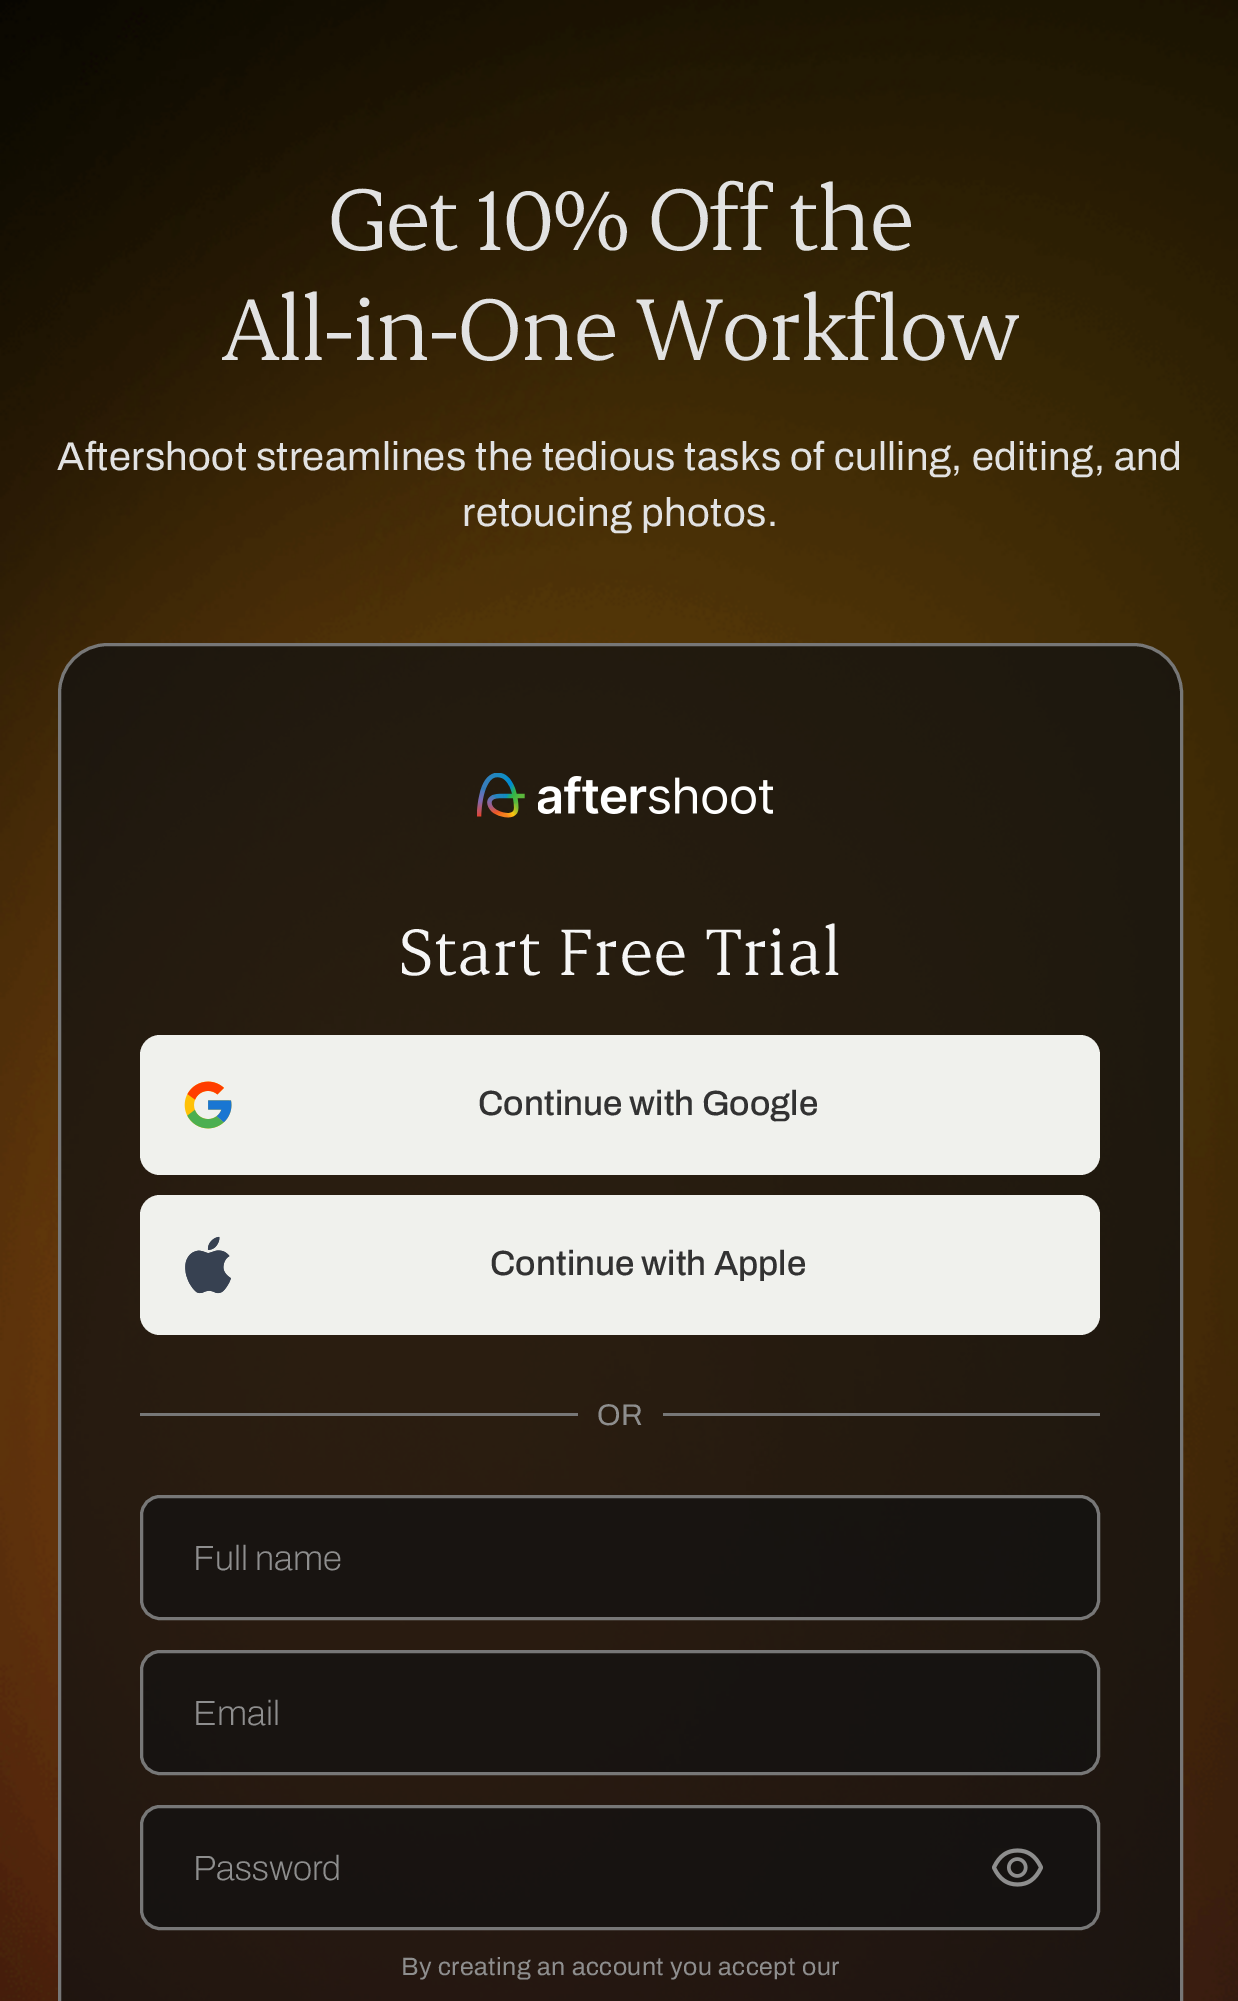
%!PS-Adobe-3.0
%%BoundingBox: 0 0 1238 2001
%%LanguageLevel: 3
%%Pages: 1
%%EndComments
%%BeginProlog
/setink { dup -16 bitshift 255 div exch dup -8 bitshift 255 and 255 div exch 255 and 255 div setrgbcolor } def
/usefont { [ exch dup neg 0 0 3 -1 roll 0 0 ] selectfont } def
/setalpha { dup .setfillconstantalpha .setstrokeconstantalpha } def
/rrect { 5 dict begin { /r /h /w /y /x } { exch def } forall
  x r add y moveto x w add y 2 copy h add r arct x w add y h add x 1 index r arct
  x y h add x y r arct x y 2 copy exch w add exch r arct closepath end } def
/drawimage { 5 dict begin { /h /w /y /x /name } { exch def } forall
  gsave x y translate w h scale
  w h 8 [w 0 0 h 0 0] name (r) file false 3 colorimage grestore end } def
%%EndProlog
%%BeginSetup
<< /PageSize [1238 2001] /PageUsesTransparency true >> setpagedevice
%%EndSetup
%%Page: 1 1
0 .pushpdf14devicefilter
0 2001 translate 1 -1 scale
4 setmiterlimit
16#000000 setink
0 0 1238 2001 rectfill
(img1.raw) 0 0 1238 2001 drawimage
/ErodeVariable-Regular 100 usefont
16#E2E2E2 setink
327 250 moveto -3 0 (Get 10% Off the) ashow
221 360 moveto -3 0 (All-in-One Workflow) ashow
/Archivo-Regular 40 usefont
57 470 moveto 0.4 0 (Aftershoot streamlines the tedious tasks of culling, editing, and) ashow
462 526 moveto 0.4 0 (retoucing photos.) ashow
0.75 setalpha
16#111111 setink
59.5 644.5 1122 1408 48.5 rrect fill
1 setalpha
16#777777 setink
3 setlinewidth
59.5 644.5 1122 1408 48.5 rrect stroke
(img2.raw) 477 773 48 45 drawimage
(img3.raw) 538 776 235 39 drawimage
/ErodeVariable-Regular 75 usefont
16#F6F6F6 setink
398 975 moveto (Start Free Trial) show
16#F0F1ED setink
140 1035 960 140 20 rrect fill
(img4.raw) 184 1081 48 48 drawimage
/Archivo-Medium 35 usefont
16#323232 setink
478 1115 moveto (Continue with Google) show
16#F0F1ED setink
140 1195 960 140 20 rrect fill
(img5.raw) 185 1236 46 58 drawimage
16#323232 setink
490 1275 moveto (Continue with Apple) show
16#777777 setink
140 1413 438 3 rectfill
/Archivo-Regular 30 usefont
16#8E8E8E setink
597 1425 moveto (OR) show
16#777777 setink
663 1413 437 3 rectfill
0.7 setalpha
16#111111 setink
141.5 1496.5 957 122 18.5 rrect fill
1 setalpha
16#777777 setink
141.5 1496.5 957 122 18.5 rrect stroke
/Archivo-ExtraLight 35 usefont
16#8E8E8E setink
193 1570 moveto (Full name) show
0.7 setalpha
16#111111 setink
141.5 1651.5 957 122 18.5 rrect fill
1 setalpha
16#777777 setink
141.5 1651.5 957 122 18.5 rrect stroke
16#8E8E8E setink
193 1725 moveto (Email) show
0.7 setalpha
16#111111 setink
141.5 1806.5 957 122 18.5 rrect fill
1 setalpha
16#777777 setink
141.5 1806.5 957 122 18.5 rrect stroke
16#8E8E8E setink
193 1880 moveto (Password) show
(img6.raw) 992 1848 51 39 drawimage
/Archivo-Regular 25 usefont
401 1975 moveto 0.5 0 (By creating an account you accept our) ashow
.poppdf14devicefilter showpage
%%EOF
